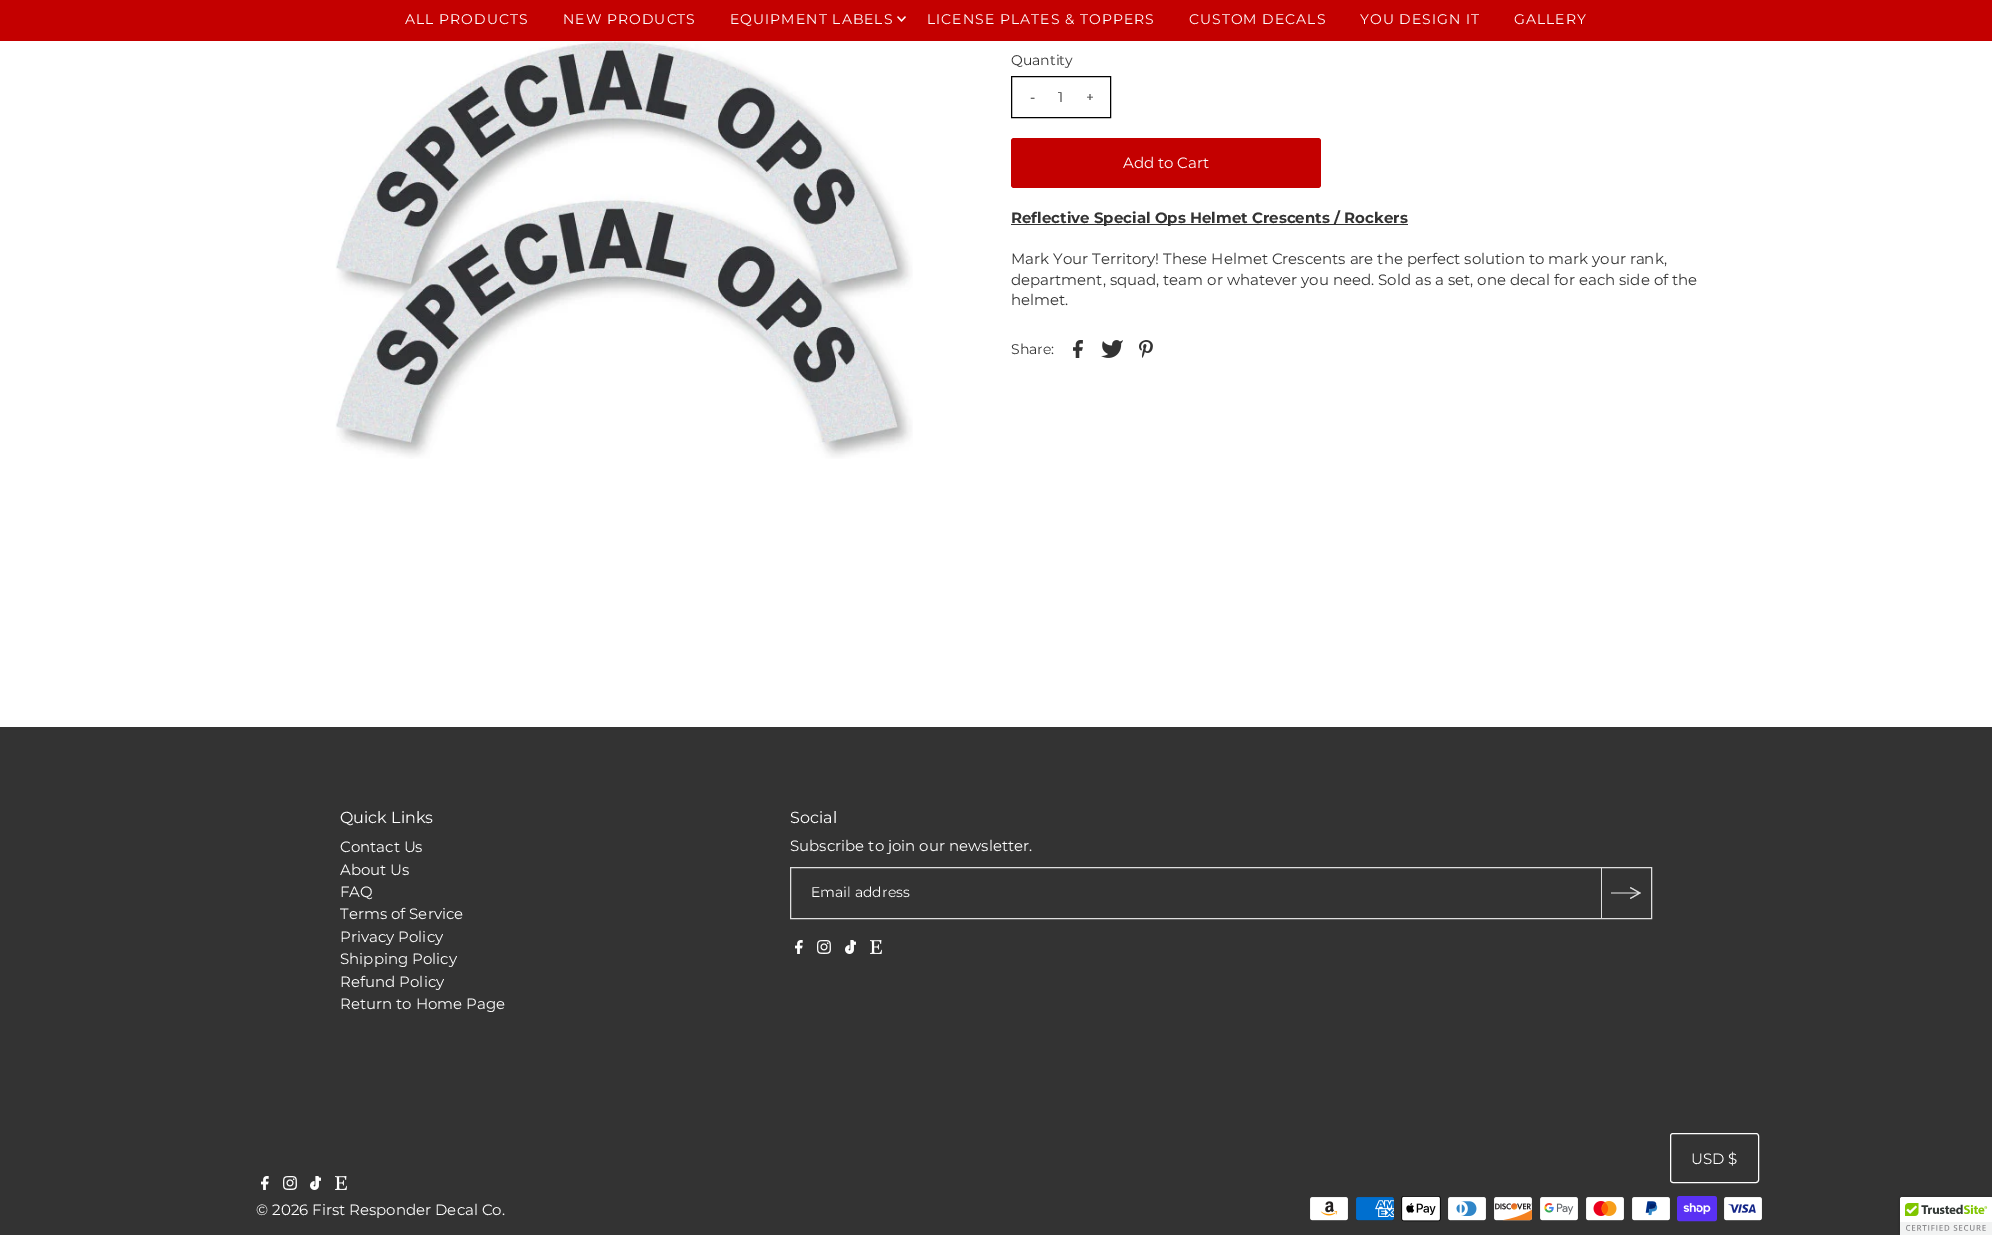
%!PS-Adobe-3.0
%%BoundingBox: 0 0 1992 1235
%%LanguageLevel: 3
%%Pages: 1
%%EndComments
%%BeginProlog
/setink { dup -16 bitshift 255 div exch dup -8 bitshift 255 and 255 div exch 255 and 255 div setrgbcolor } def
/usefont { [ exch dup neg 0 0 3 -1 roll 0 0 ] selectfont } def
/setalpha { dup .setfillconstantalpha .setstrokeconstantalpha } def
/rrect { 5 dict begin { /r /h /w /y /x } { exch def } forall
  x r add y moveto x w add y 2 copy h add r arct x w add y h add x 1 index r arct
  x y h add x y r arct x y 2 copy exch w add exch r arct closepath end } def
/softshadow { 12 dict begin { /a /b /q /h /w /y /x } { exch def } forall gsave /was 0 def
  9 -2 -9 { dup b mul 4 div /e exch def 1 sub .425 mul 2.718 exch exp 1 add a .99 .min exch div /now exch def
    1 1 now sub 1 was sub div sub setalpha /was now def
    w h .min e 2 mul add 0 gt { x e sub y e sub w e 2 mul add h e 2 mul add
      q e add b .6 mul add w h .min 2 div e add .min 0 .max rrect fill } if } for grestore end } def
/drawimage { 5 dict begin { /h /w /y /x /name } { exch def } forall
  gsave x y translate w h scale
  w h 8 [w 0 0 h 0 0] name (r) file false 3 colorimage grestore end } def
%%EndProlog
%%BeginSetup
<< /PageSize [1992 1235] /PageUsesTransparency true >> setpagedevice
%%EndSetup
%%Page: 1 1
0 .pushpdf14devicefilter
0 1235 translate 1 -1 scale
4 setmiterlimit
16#FFFFFF setink
0 0 1992 1235 rectfill
16#C40000 setink
0 0 1992 41 rectfill
/Montserrat-Regular 14 usefont
16#FFFFFF setink
405 24 moveto 1 0 (ALL PRODUCTS) ashow
563 24 moveto 1 0 (NEW PRODUCTS) ashow
730 24 moveto 1 0 (EQUIPMENT LABELS) ashow
(img1.raw) 897 16 9 6 drawimage
927 24 moveto 1 0 (LICENSE PLATES & TOPPERS) ashow
1189 24 moveto 1 0 (CUSTOM DECALS) ashow
1360 24 moveto 1 0 (YOU DESIGN IT) ashow
1514 24 moveto 1 0 (GALLERY) ashow
(img2.raw) 335 41 578 418 drawimage
16#333333 setink
1011 65 moveto (Quantity) show
16#000000 setink
1011.5 76.5 99 41 rectstroke
16#333333 setink
[
    [(-) 1030 102]
    [(1) 1058 102]
    [(+) 1086 102]
] { aload pop moveto show } forall
16#C40000 setink
1011 138 310 50 3 rrect fill
/Montserrat-Regular 15 usefont
16#FFFFFF setink
1123 168 moveto (Add to Cart) show
16#333333 setink
1011 224 397 1 rectfill
/Montserrat-Bold 15 usefont
1011 223 moveto (Reflective Special Ops Helmet Crescents / Rockers) show
/Montserrat-Regular 15 usefont
[
    [(Mark Your Territory! These Helmet Crescents are the perfect solution to mark your rank,) 1011 264]
    [(department, squad, team or whatever you need. Sold as a set, one decal for each side of the) 1011 285]
    [(helmet.) 1011 305]
] { aload pop moveto show } forall
/Montserrat-Regular 14 usefont
1011 354 moveto (Share:) show
(img3.raw) 1073 340 10 18 drawimage
(img4.raw) 1101 340 22 18 drawimage
(img5.raw) 1139 340 14 18 drawimage
0 727 1992 508 rectfill
/Montserrat-Regular 16 usefont
16#FFFFFF setink
340 823 moveto (Quick Links) show
/Montserrat-Regular 15 usefont
[
    [(Contact Us) 340 852]
    [(About Us) 340 875]
    [(FAQ) 340 897]
    [(Terms of Service) 340 919]
    [(Privacy Policy) 340 942]
    [(Shipping Policy) 340 964]
    [(Refund Policy) 340 987]
    [(Return to Home Page) 340 1009]
] { aload pop moveto show } forall
/Montserrat-Regular 16 usefont
790 823 moveto (Social) show
/Montserrat-Regular 15 usefont
790 851 moveto (Subscribe to join our newsletter.) show
16#DFDFDF setink
790.5 867.5 861 51 rectstroke
/Montserrat-Regular 14 usefont
16#FFFFFF setink
811 897 moveto (Email address) show
16#DFDFDF setink
1601 868 1 50 rectfill
1630.5 887 moveto 1641 893 lineto 1630.5 899 lineto 1630 898 lineto 1638 893.5 lineto 1611 893.5 lineto 1611 892.5 lineto 1638 892.5 lineto 1630 888 lineto closepath fill
(img6.raw) 795 940 8 14 drawimage
(img7.raw) 817 940 14 14 drawimage
(img8.raw) 845 940 11 14 drawimage
(img9.raw) 870 940 12 14 drawimage
16#FFFFFF setink
1670.5 1133.5 88 49 2.5 rrect stroke
/Montserrat-Regular 15 usefont
1691 1164 moveto (USD $) show
(img10.raw) 1310 1197 38 24 drawimage
(img11.raw) 1356 1197 38 24 drawimage
(img12.raw) 1401 1196 40 26 drawimage
(img13.raw) 1448 1197 38 24 drawimage
(img14.raw) 1494 1197 38 24 drawimage
(img15.raw) 1540 1197 38 24 drawimage
(img16.raw) 1586 1197 38 24 drawimage
(img17.raw) 1632 1197 38 24 drawimage
(img18.raw) 1677 1196 40 26 drawimage
(img19.raw) 1724 1197 38 24 drawimage
(img6.raw) 261 1176 8 14 drawimage
(img7.raw) 283 1176 14 14 drawimage
(img8.raw) 310 1176 11 14 drawimage
(img9.raw) 335 1176 12 14 drawimage
256 1215 moveto (© 2026 First Responder Decal Co.) show
16#000000 setink
1900 1197 92 38 2 2.5 0.2 softshadow
16#FFFFFF setink
1902 1197 moveto 1992 1197 lineto 1992 1235 lineto 1900 1235 lineto 1900 1199 lineto 1900 1198 1901 1197 1902 1197 curveto closepath fill
(img20.raw) 1900 1197 92 38 drawimage
.poppdf14devicefilter showpage
%%EOF
